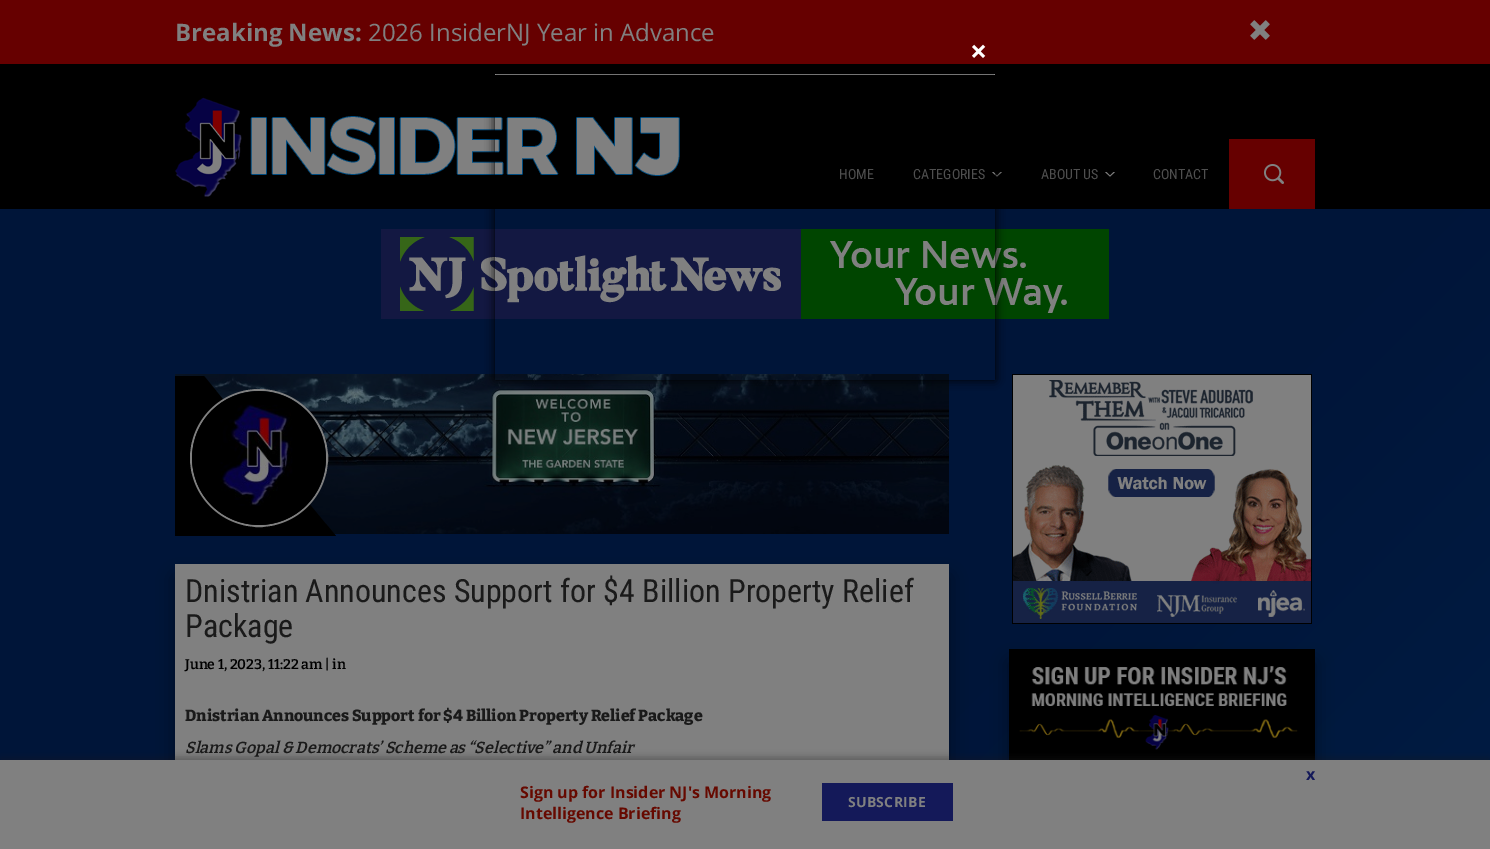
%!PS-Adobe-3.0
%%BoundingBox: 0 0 1490 849
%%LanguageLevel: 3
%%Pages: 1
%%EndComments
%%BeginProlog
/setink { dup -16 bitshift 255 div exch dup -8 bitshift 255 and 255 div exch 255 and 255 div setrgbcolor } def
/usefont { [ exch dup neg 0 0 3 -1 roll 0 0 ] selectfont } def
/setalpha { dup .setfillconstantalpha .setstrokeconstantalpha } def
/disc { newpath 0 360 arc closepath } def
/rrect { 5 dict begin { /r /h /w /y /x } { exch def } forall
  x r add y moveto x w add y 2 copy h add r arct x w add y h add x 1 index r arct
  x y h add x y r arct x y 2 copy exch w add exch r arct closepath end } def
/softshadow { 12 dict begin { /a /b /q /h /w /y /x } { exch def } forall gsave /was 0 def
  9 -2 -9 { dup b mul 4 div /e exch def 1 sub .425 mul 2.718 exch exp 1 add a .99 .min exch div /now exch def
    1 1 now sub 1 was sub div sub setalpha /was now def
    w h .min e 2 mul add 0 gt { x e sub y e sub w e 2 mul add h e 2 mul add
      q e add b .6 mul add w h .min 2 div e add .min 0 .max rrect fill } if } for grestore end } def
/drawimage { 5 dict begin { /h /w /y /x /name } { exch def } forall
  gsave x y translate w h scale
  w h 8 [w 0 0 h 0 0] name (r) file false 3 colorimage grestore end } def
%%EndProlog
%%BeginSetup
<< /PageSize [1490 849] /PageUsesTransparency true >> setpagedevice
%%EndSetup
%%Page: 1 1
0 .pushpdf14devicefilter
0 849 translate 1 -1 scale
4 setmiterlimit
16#660000 setink
0 0 1490 849 rectfill
/OpenSans-Bold 24 usefont
16#808080 setink
175 41 moveto (Breaking News:) show
/OpenSans-Regular 24 usefont
368 41 moveto (2026 InsiderNJ Year in Advance) show
(img1.raw) 1250 20 20 20 drawimage
16#000000 setink
0 64 1490 145 rectfill
16#E5E5E5 setink
495 74 500 1 rectfill
/OpenSans-Bold 30 usefont
16#FFFFFF setink
970 62 moveto (×) show
(img2.raw) 175 97 505 100 drawimage
16#808080 setink
1002 172 moveto 997 176.5 lineto 997 175.5 lineto 1000.5 172 lineto closepath 997 176.5 moveto 992 172 lineto 993.5 172 lineto 997 175.5 lineto closepath fill
gsave 0 209 moveto 1490 209 lineto 1490 760 lineto 0 760 lineto closepath clip newpath
<< /ShadingType 2 /ColorSpace /DeviceRGB /Coords [-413 622 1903 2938] /Extend [true true] /Function << /FunctionType 3 /Domain [0 1] /Functions [<< /FunctionType 2 /Domain [0 1] /C0 [0 0.082 0.224] /C1 [0 0.082 0.224] /N 1 >> << /FunctionType 2 /Domain [0 1] /C0 [0 0.082 0.224] /C1 [0 0.216 0.404] /N 1 >>] /Bounds [0.31] /Encode [0 1 0 1] >> >> shfill grestore
(img4.raw) 381 229 728 90 drawimage
(img5.raw) 175 374 774 160 drawimage
gsave
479 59 moveto 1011 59 lineto 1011 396 lineto 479 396 lineto closepath 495 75 moveto 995 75 lineto 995 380 lineto 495 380 lineto closepath eoclip newpath
16#000000 setink
495 75 500 305 0 5 1 softshadow
grestore
/RobotoCondensed-Regular 14 usefont
16#4F4F4F setink
[
    [(HOME) 839 179]
    [(CATEGORIES) 913 179]
    [(ABOUT US) 1041 179]
] { aload pop moveto show } forall
16#808080 setink
1115 172 moveto 1110 176.5 lineto 1110 175.5 lineto 1113.5 172 lineto closepath 1110 176.5 moveto 1105 172 lineto 1106.5 172 lineto 1110 175.5 lineto closepath fill
16#4F4F4F setink
1153 179 moveto (CONTACT) show
16#660000 setink
1229 139 86 70 rectfill
(img3.raw) 1264 164 20 20 drawimage
16#000000 setink
204 376 moveto 204 536 lineto 336 536 lineto closepath fill
175 376 29 160 rectfill
16#808080 setink
2 setlinewidth
259 458 68 disc stroke
(img6.raw) 192 391 134 134 drawimage
16#000000 setink
175 577 774 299 0 9 0.38 softshadow
16#808080 setink
175 564 774 196 rectfill
/RobotoCondensed-Regular 32 usefont
16#1A1A1A setink
185 602 moveto (Dnistrian Announces Support for $4 Billion Property Relief) show
185 637 moveto (Package) show
/Bitter-SemiBold 14 usefont
16#000000 setink
185 669 moveto (June 1, 2023, 11:22 am | in) show
/Bitter-ExtraBold 16 usefont
16#1A1A1A setink
185 721 moveto (Dnistrian Announces Support for $4 Billion Property Relief Package) show
/Bitter-SemiBoldItalic 16 usefont
185 753 moveto (Slams Gopal & Democrats’ Scheme as “Selective” and Unfair) show
(img7.raw) 1012 374 300 250 drawimage
16#000000 setink
1009 662 306 182 0 9 0.38 softshadow
(img8.raw) 1009 649 306 111 drawimage
16#191919 setink
0 757 1490 89 0 3.5 0.32 softshadow
16#808080 setink
0 760 1490 89 rectfill
/OpenSans-Bold 16 usefont
16#660900 setink
520 798 moveto (Sign up for Insider NJ's Morning) show
520 819 moveto (Intelligence Briefing) show
16#141959 setink
1306 780 moveto (x) show
822 783 131 38 rectfill
/OpenSans-Bold 14 usefont
16#808080 setink
848 807 moveto 0.25 0 (SUBSCRIBE) ashow
.poppdf14devicefilter showpage
%%EOF
